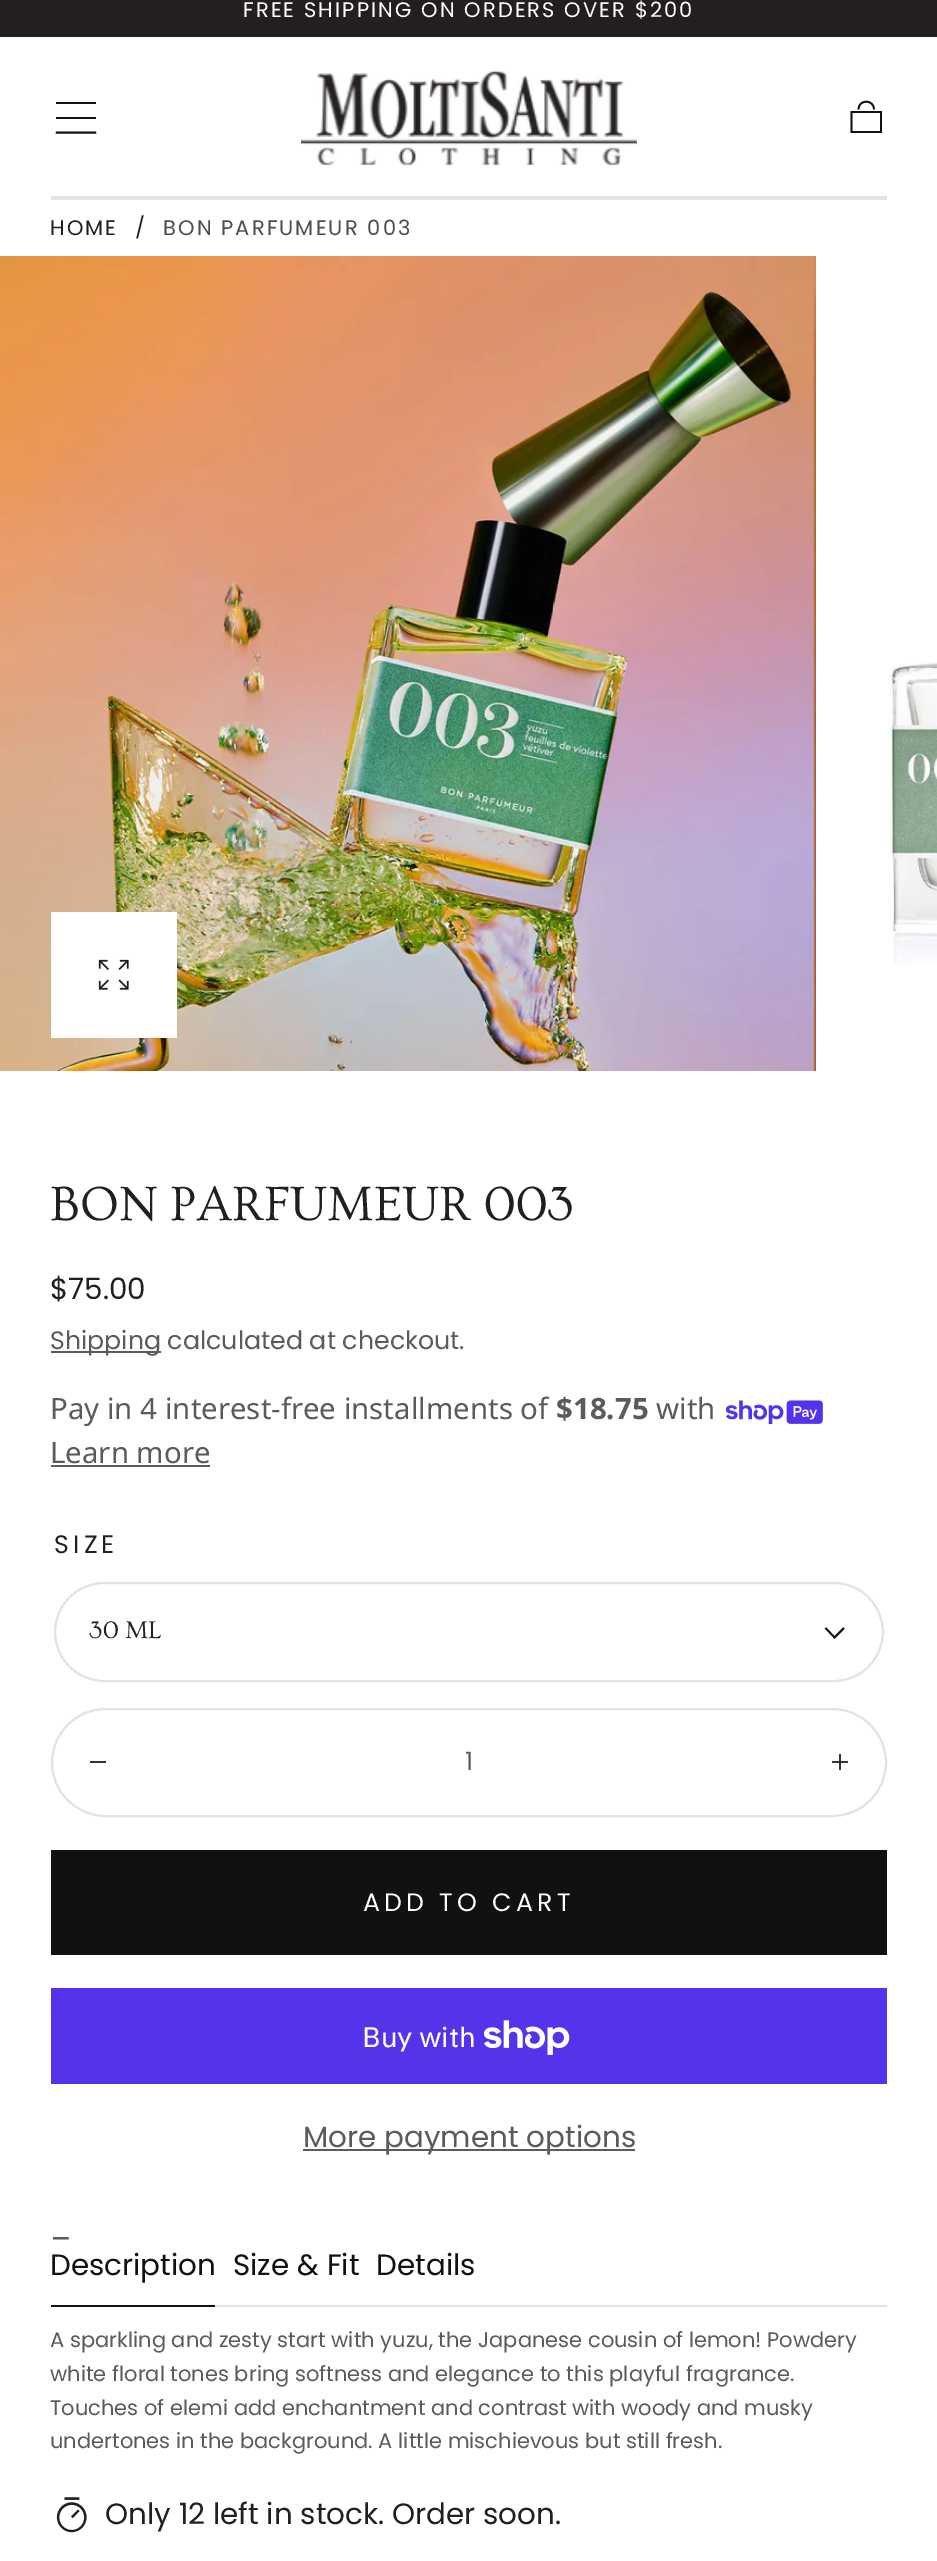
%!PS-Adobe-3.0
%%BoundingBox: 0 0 937 2561
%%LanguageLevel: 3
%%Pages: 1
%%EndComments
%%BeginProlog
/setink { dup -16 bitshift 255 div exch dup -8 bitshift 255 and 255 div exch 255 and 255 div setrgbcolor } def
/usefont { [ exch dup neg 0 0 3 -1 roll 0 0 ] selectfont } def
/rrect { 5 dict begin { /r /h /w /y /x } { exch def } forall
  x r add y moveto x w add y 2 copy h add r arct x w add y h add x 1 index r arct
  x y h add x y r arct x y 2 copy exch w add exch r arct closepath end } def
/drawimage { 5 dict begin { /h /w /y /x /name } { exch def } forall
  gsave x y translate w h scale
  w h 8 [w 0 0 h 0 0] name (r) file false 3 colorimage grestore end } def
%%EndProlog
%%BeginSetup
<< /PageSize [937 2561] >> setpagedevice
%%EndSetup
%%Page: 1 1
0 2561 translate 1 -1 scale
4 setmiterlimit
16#FFFFFF setink
0 0 937 2561 rectfill
16#393536 setink
832 1761 16 2 rectfill
16#231F20 setink
0 0 937 37 rectfill
/Poppins-Regular 21 usefont
16#FFFFFF setink
243 17 moveto 2.1 0 (FREE SHIPPING ON ORDERS OVER $200) ashow
16#111111 setink
56 102 40 2 rectfill
56 117 40 2 rectfill
2.1 setlinewidth
2 setlinecap
57 132.5 moveto 95 132.5 lineto stroke
(img1.raw) 301 71 336 95 drawimage
1.8 setlinewidth
0 setlinecap
881 132 moveto 851.5 132 lineto 851.5 112 lineto 881 112 lineto closepath 874 109.5 moveto 874 99 858.5 99 858.5 109.5 curveto stroke
16#E6E2E1 setink
51 196 836 4 rectfill
16#231F20 setink
50 235 moveto 2.1 0 (HOME) ashow
135 235 moveto 2.1 0 (/) ashow
16#4F4C4D setink
163 235 moveto 2.1 0 (BON PARFUMEUR 003) ashow
(img2.raw) 0 256 816 815 drawimage
(img3.raw) 889 662 48 304 drawimage
16#FFFFFF setink
51 912 126 126 rectfill
(img4.raw) 98 959 31 31 drawimage
/Ovo-Regular 50.4 usefont
16#231F20 setink
50 1220 moveto (BON PARFUMEUR 003) show
/Poppins-Regular 29.4 usefont
50 1299 moveto ($75.00) show
16#5E5A59 setink
51 1351 110 2 rectfill
/Poppins-Regular 25.25 usefont
50 1349 moveto (Shipping calculated at checkout.) show
/NotoSans-Regular 29.4 usefont
50 1419 moveto (Pay in 4 interest-free installments of) show
/NotoSans-Bold 29.4 usefont
556 1419 moveto ($18.75) show
/NotoSans-Regular 29.4 usefont
656 1419 moveto (with) show
(img5.raw) 725 1400 98 24 drawimage
50 1463 moveto (Learn more) show
51 1465 159 2 rectfill
/Poppins-Regular 25.25 usefont
16#231F20 setink
54 1553 moveto 4.25 0 (SIZE) ashow
16#E6E2E1 setink
2 setlinewidth
55 1583 828 98 49 rrect stroke
/Ovo-Regular 25.25 usefont
16#231F20 setink
89 1638 moveto (30 ML) show
16#111111 setink
1.8 setlinewidth
844 1628 moveto 834.5 1637.5 lineto 825.5 1628 lineto stroke
16#E6E2E1 setink
2 setlinewidth
52 1709 834 107 53.5 rrect stroke
16#393536 setink
90 1761 16 2 rectfill
/Poppins-Regular 25.25 usefont
16#5E5A59 setink
465 1770 moveto (1) show
[
    [839 1754 2 16 16#393536]
    [839 1761 2 2 16#252122]
    [51 1850 836 105 16#111111]
] { aload pop setink rectfill } forall
16#FFFFFF setink
363 1911 moveto 4.25 0 (ADD TO CART) ashow
16#5433EB setink
51 1988 836 96 rectfill
/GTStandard-Regular 28 usefont
16#FFFFFF setink
362 2047 moveto (Buy with) show
(img6.raw) 484 2020 86 35 drawimage
16#5E5A59 setink
303 2149 332 2 rectfill
/Poppins-Regular 29.4 usefont
303 2147 moveto (More payment options) show
50 2236 moveto (_) show
16#E6E2E1 setink
215 2305 672 2 rectfill
16#111111 setink
51 2305 164 2 rectfill
[
    [(Description) 50 2275]
    [(Size & Fit) 233 2275]
    [(Details) 376 2275]
] { aload pop moveto show } forall
/Poppins-Regular 21 usefont
16#5E5A59 setink
[
    [(A sparkling and zesty start with yuzu, the Japanese cousin of lemon! Powdery) 50 2347]
    [(white floral tones bring softness and elegance to this playful fragrance.) 50 2381]
    [(Touches of elemi add enchantment and contrast with woody and musky) 50 2415]
    [(undertones in the background. A little mischievous but still fresh.) 50 2448]
] { aload pop moveto show } forall
(img7.raw) 56 2497 31 36 drawimage
/Poppins-Regular 29.4 usefont
16#231F20 setink
105 2524 moveto (Only 12 left in stock. Order soon.) show
showpage
%%EOF
